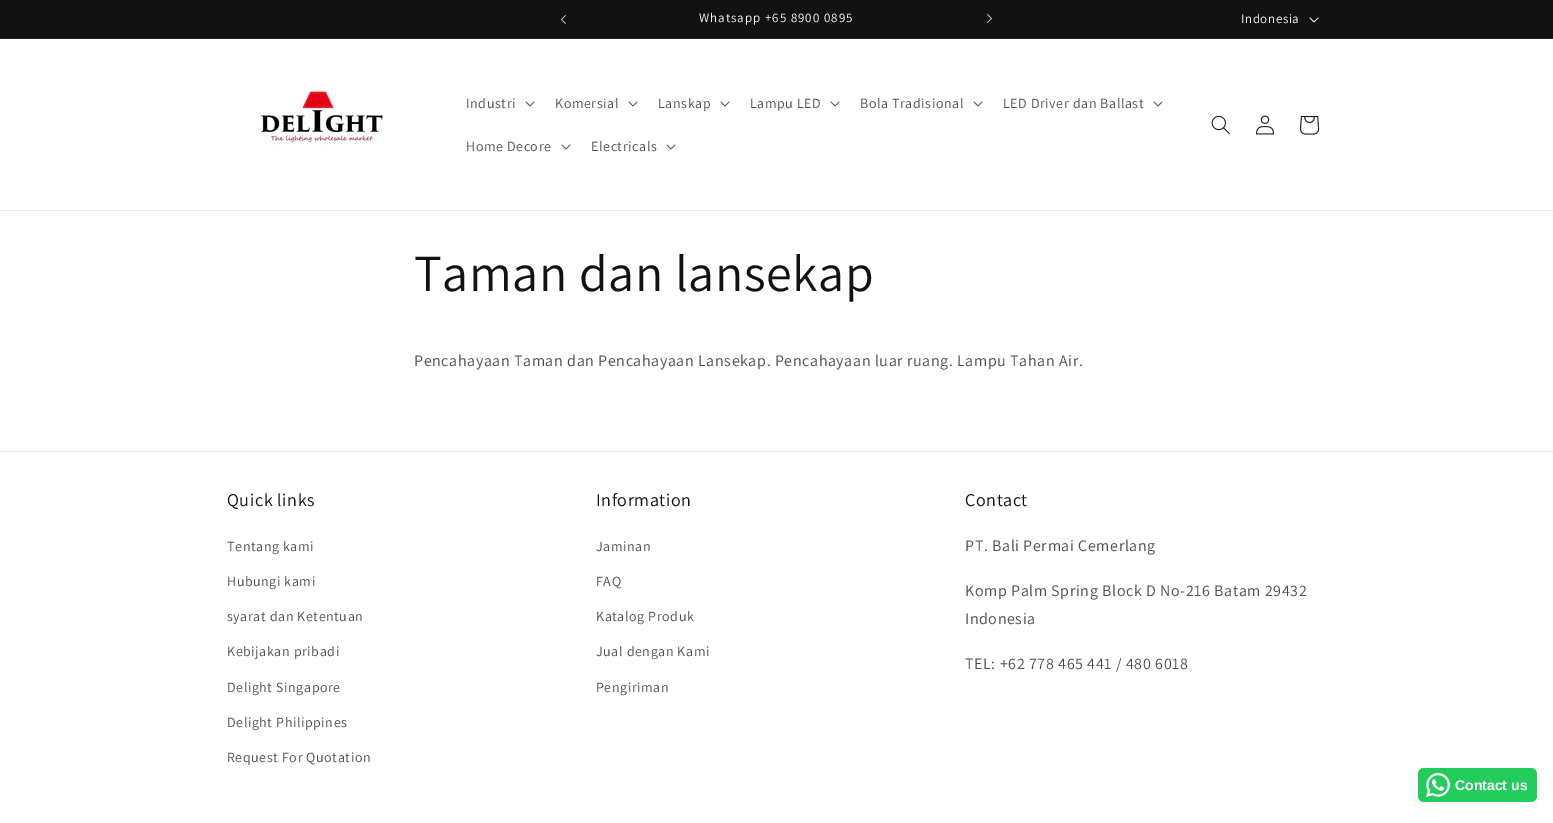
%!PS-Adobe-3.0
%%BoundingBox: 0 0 1553 823
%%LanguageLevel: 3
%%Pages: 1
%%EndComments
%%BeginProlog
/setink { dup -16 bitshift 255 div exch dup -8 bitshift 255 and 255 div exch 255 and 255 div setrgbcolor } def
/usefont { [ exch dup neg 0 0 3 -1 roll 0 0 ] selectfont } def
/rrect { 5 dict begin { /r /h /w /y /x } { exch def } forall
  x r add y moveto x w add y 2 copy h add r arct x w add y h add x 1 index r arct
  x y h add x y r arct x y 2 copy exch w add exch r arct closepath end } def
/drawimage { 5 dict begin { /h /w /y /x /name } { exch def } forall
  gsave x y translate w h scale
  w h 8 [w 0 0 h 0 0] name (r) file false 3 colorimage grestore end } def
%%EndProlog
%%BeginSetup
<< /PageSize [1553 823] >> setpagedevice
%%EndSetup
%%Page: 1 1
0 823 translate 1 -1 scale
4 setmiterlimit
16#FFFFFF setink
0 0 1553 823 rectfill
16#121212 setink
0 0 1553 38 rectfill
16#252525 setink
0 38 1553 1 rectfill
(img1.raw) 561 15 5 9 drawimage
/Assistant-Regular 13 usefont
16#FFFFFF setink
699 22 moveto 1 0 (Whatsapp +65 8900 0895) ashow
(img2.raw) 987 14 5 9 drawimage
1241 23 moveto 0.6 0 (Indonesia) ashow
(img3.raw) 1309 17 10 6 drawimage
16#ECECEC setink
0 210 1553 1 rectfill
(img4.raw) 259 90 124 57 drawimage
/Assistant-Regular 14 usefont
16#4D4D4D setink
466 108 moveto 0.6 0 (Industri) ashow
(img5.raw) 525 101 10 6 drawimage
555 108 moveto 0.6 0 (Komersial) ashow
(img5.raw) 628 101 10 6 drawimage
658 108 moveto 0.6 0 (Lanskap) ashow
(img5.raw) 720 101 10 6 drawimage
750 108 moveto 0.6 0 (Lampu LED) ashow
(img5.raw) 830 101 10 6 drawimage
860 108 moveto 0.6 0 (Bola Tradisional) ashow
(img5.raw) 973 101 10 6 drawimage
1003 108 moveto 0.6 0 (LED Driver dan Ballast) ashow
(img5.raw) 1153 101 10 6 drawimage
466 151 moveto 0.6 0 (Home Decore) ashow
(img5.raw) 561 144 10 6 drawimage
591 151 moveto 0.6 0 (Electricals) ashow
(img5.raw) 666 144 10 6 drawimage
(img6.raw) 1211 115 19 20 drawimage
(img7.raw) 1256 115 18 20 drawimage
(img8.raw) 1300 116 20 19 drawimage
/Assistant-Regular 52 usefont
16#121212 setink
414 291 moveto 0.6 0 (Taman dan lansekap) ashow
/Assistant-Regular 16 usefont
16#4D4D4D setink
414 366 moveto 0.6 0 (Pencahayaan Taman dan Pencahayaan Lansekap. Pencahayaan luar ruang. Lampu Tahan Air.) ashow
16#ECECEC setink
0 451 1553 1 rectfill
/Assistant-Regular 18 usefont
16#121212 setink
227 506 moveto 0.6 0 (Quick links) ashow
/Assistant-Regular 14 usefont
16#4D4D4D setink
227 551 moveto 0.6 0 (Tentang kami) ashow
227 586 moveto 0.6 0 (Hubungi kami) ashow
227 621 moveto 0.6 0 (syarat dan Ketentuan) ashow
227 656 moveto 0.6 0 (Kebijakan pribadi) ashow
227 692 moveto 0.6 0 (Delight Singapore) ashow
227 727 moveto 0.6 0 (Delight Philippines) ashow
227 762 moveto 0.6 0 (Request For Quotation) ashow
/Assistant-Regular 18 usefont
16#121212 setink
596 506 moveto 0.6 0 (Information) ashow
/Assistant-Regular 14 usefont
16#4D4D4D setink
596 551 moveto 0.6 0 (Jaminan) ashow
596 586 moveto 0.6 0 (FAQ) ashow
596 621 moveto 0.6 0 (Katalog Produk) ashow
596 656 moveto 0.6 0 (Jual dengan Kami) ashow
596 692 moveto 0.6 0 (Pengiriman) ashow
/Assistant-Regular 18 usefont
16#121212 setink
965 506 moveto 0.6 0 (Contact) ashow
/Assistant-Regular 16 usefont
16#4D4D4D setink
965 551 moveto 0.6 0 (PT. Bali Permai Cemerlang) ashow
965 596 moveto 0.6 0 (Komp Palm Spring Block D No-216 Batam 29432) ashow
965 624 moveto 0.6 0 (Indonesia) ashow
965 669 moveto 0.6 0 (TEL: +62 778 465 441 / 480 6018) ashow
16#22CD5B setink
1418 768 119 34 6 rrect fill
(img9.raw) 1426 773 24 24 drawimage
/LiberationSans-Bold 14 usefont
16#FFFFFF setink
1455 790 moveto (Contact us) show
showpage
%%EOF
